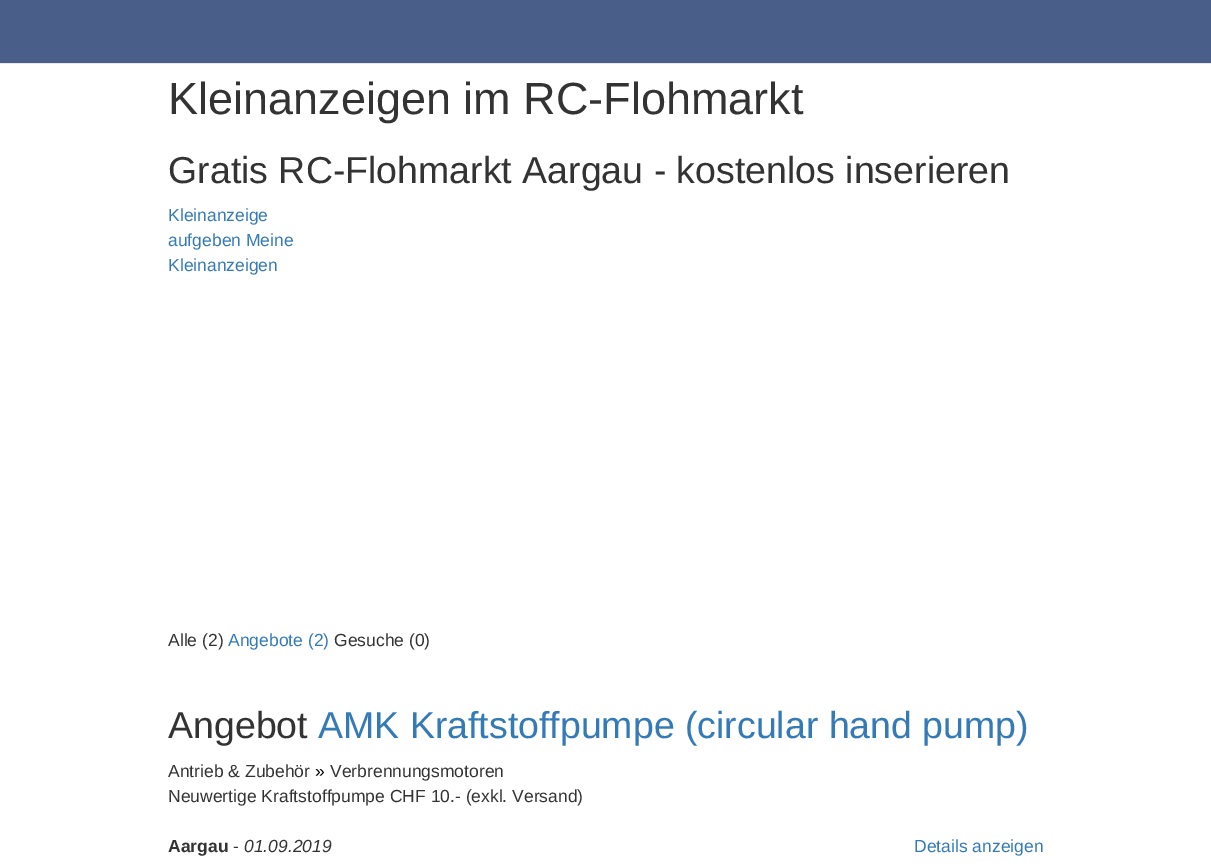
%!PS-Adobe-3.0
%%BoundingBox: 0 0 1211 868
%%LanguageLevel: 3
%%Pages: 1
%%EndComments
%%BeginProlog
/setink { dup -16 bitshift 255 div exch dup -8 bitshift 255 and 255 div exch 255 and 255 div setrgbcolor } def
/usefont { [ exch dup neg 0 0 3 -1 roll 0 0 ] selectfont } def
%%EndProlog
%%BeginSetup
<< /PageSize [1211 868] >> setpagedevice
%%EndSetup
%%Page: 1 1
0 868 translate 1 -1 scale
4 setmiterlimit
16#FFFFFF setink
0 0 1211 868 rectfill
16#495E88 setink
0 0 1211 63 rectfill
16#E7E7E7 setink
0 63 1211 1 rectfill
/LiberationSans-Regular 45 usefont
16#333333 setink
168 114 moveto (Kleinanzeigen im RC-Flohmarkt) show
/LiberationSans-Regular 37.5 usefont
168 183 moveto (Gratis RC-Flohmarkt Aargau - kostenlos inserieren) show
/LiberationSans-Regular 17.5 usefont
16#337AB7 setink
[
    [(Kleinanzeige) 168 221]
    [(aufgeben Meine) 168 246]
    [(Kleinanzeigen) 168 271]
] { aload pop moveto show } forall
16#333333 setink
168 646 moveto (Alle \(2\)) show
16#337AB7 setink
228 646 moveto (Angebote \(2\)) show
16#333333 setink
334 646 moveto (Gesuche \(0\)) show
/LiberationSans-Regular 37.5 usefont
168 738 moveto (Angebot) show
16#337AB7 setink
318 738 moveto (AMK Kraftstoffpumpe \(circular hand pump\)) show
/LiberationSans-Regular 17.5 usefont
16#333333 setink
168 777 moveto (Antrieb & Zubehör) show
16#000000 setink
315 777 moveto (») show
16#333333 setink
330 777 moveto (Verbrennungsmotoren) show
168 802 moveto (Neuwertige Kraftstoffpumpe CHF 10.- \(exkl. Versand\)) show
/LiberationSans-Bold 17.5 usefont
168 852 moveto (Aargau) show
/LiberationSans-Regular 17.5 usefont
233 852 moveto (-) show
/LiberationSans-Italic 17.5 usefont
244 852 moveto (01.09.2019) show
/LiberationSans-Regular 17.5 usefont
16#337AB7 setink
914 852 moveto (Details anzeigen) show
showpage
%%EOF
